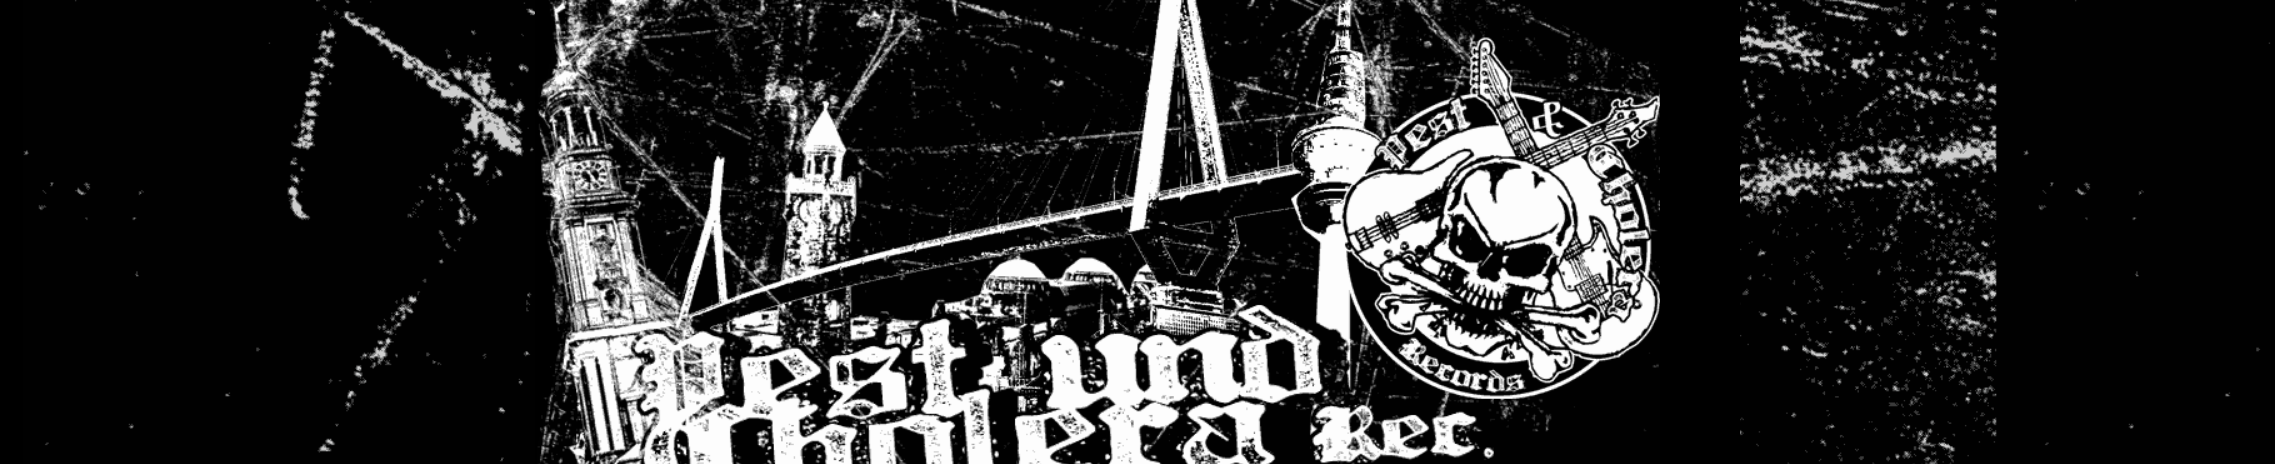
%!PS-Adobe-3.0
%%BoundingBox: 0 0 2275 464
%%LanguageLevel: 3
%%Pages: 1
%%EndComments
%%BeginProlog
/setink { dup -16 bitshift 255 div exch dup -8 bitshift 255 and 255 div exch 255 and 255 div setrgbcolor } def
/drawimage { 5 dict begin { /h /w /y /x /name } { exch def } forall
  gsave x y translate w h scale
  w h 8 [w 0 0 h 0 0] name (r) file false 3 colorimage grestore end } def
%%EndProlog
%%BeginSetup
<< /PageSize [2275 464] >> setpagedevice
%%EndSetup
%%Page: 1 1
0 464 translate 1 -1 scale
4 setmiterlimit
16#000000 setink
0 0 2275 464 rectfill
(img1.raw) 23 0 2248 464 drawimage
535 0 1205 464 rectfill
(img2.raw) 537 0 1123 464 drawimage
showpage
%%EOF
